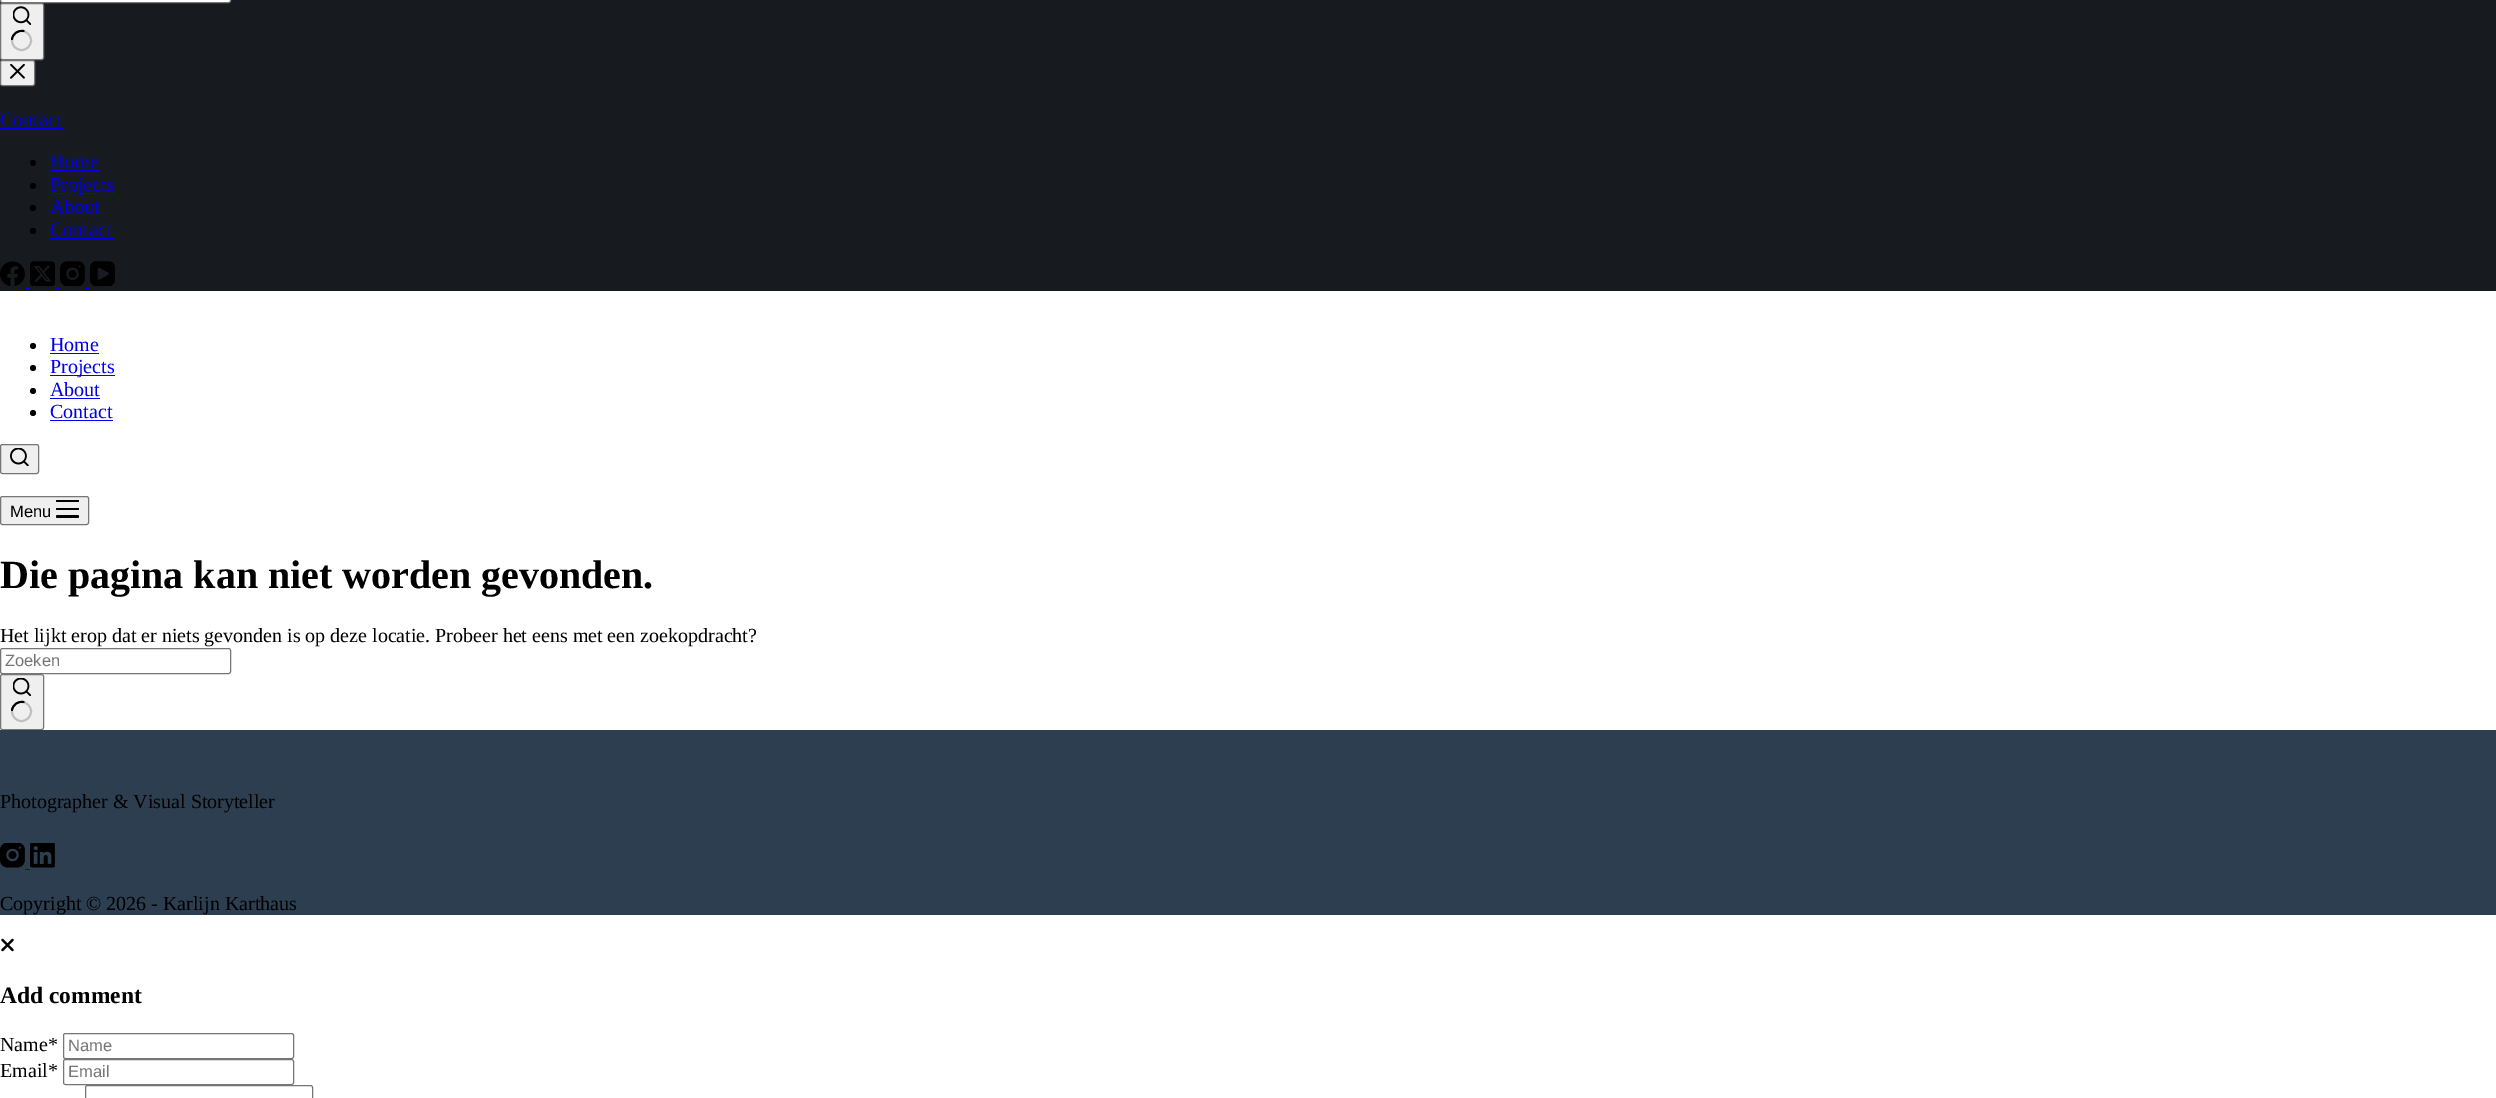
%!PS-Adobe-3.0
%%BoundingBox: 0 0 2496 1098
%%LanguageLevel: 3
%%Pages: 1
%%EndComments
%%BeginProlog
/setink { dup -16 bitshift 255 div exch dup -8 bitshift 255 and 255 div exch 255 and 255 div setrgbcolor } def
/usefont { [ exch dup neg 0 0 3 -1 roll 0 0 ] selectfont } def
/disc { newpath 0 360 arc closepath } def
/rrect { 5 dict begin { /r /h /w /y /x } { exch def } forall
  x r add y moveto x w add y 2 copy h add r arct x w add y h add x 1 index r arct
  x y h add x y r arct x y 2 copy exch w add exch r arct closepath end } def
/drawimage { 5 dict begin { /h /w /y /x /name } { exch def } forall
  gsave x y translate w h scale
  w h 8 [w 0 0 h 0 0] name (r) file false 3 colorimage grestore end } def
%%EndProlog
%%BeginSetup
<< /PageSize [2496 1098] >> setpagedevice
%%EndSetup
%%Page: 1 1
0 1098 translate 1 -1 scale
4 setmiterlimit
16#FFFFFF setink
0 0 2496 1098 rectfill
16#171A1E setink
0 0 2496 291 rectfill
16#FFFFFF setink
0.5 -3.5 230 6 2 rrect gsave fill grestore
16#767676 setink
stroke
16#EFEFEF setink
0.5 3.5 43 56 2 rrect gsave fill grestore
16#767676 setink
stroke
(img1.raw) 13 6 18 19 drawimage
16#BFBFBF setink
1.9 setlinewidth
21.5 40.5 9.5 disc stroke
16#000000 setink
1 setlinecap
12 39 moveto 13 33.5 18 30 23.5 31 curveto stroke
16#EFEFEF setink
0.5 60.5 34 25 2 rrect gsave fill grestore
16#767676 setink
1 setlinewidth
0 setlinecap
stroke
(img2.raw) 10 64 15 15 drawimage
/LiberationSerif-Regular 20 usefont
16#0000EE setink
0 126 moveto (Contact) show
0 128 63 1 rectfill
16#000000 setink
33 163 3 disc fill
16#0000EE setink
50 168 moveto (Home) show
50 170 49 1 rectfill
16#000000 setink
33 186 3 disc fill
16#0000EE setink
50 193 65 1 rectfill
50 191 moveto (Projects) show
16#000000 setink
33 208 3 disc fill
16#0000EE setink
50 213 moveto (About) show
50 215 50 1 rectfill
16#000000 setink
33 231 3 disc fill
16#0000EE setink
50 236 moveto (Contact) show
50 238 63 1 rectfill
(img3.raw) 0 261 25 25 drawimage
(img4.raw) 30 261 25 25 drawimage
(img5.raw) 60 261 25 25 drawimage
(img6.raw) 90 261 25 25 drawimage
[
    [25 288 5 1 16#0000EE]
    [55 288 5 1 16#0000EE]
    [85 288 5 1 16#0000EE]
] { aload pop setink rectfill } forall
16#000000 setink
33 346 3 disc fill
16#0000EE setink
50 351 moveto (Home) show
50 353 49 1 rectfill
16#000000 setink
33 368 3 disc fill
16#0000EE setink
50 375 65 1 rectfill
50 373 moveto (Projects) show
16#000000 setink
33 391 3 disc fill
16#0000EE setink
50 396 moveto (About) show
50 398 50 1 rectfill
16#000000 setink
33 413 3 disc fill
16#0000EE setink
50 418 moveto (Contact) show
50 420 63 1 rectfill
16#EFEFEF setink
0.5 444.5 38 29 2 rrect gsave fill grestore
16#767676 setink
stroke
(img7.raw) 10 448 19 18 drawimage
16#EFEFEF setink
0.5 496.5 88 28 2 rrect gsave fill grestore
16#767676 setink
stroke
16#000000 setink
56 500 23 2 1 rrect fill
/LiberationSans-Regular 16.5 usefont
10 517 moveto (Menu) show
56 508 23 2 1 rrect fill
56 515 23 3 1.5 rrect fill
/LiberationSerif-Bold 40 usefont
0 588 moveto (Die pagina kan niet worden gevonden.) show
/LiberationSerif-Regular 20 usefont
0 642 moveto (Het lijkt erop dat er niets gevonden is op deze locatie. Probeer het eens met een zoekopdracht?) show
16#767676 setink
0.5 648.5 230 25 2 rrect stroke
/LiberationSans-Regular 16.5 usefont
16#757575 setink
5 666 moveto (Zoeken) show
16#EFEFEF setink
0.5 674.5 43 55 2 rrect gsave fill grestore
16#767676 setink
stroke
(img8.raw) 13 678 18 18 drawimage
16#BFBFBF setink
1.9 setlinewidth
21.5 711.5 9.5 disc stroke
16#000000 setink
1 setlinecap
12 710 moveto 13 704.5 18 701 23.5 702 curveto stroke
16#2C3E50 setink
0 730 2496 185 rectfill
/LiberationSerif-Regular 20 usefont
16#000000 setink
0 808 moveto (Photographer & Visual Storyteller) show
(img9.raw) 0 843 25 25 drawimage
(img10.raw) 30 843 25 25 drawimage
16#0000EE setink
25 869 5 1 rectfill
16#000000 setink
0 910 moveto (Copyright © 2026 - Karlijn Karthaus) show
(img11.raw) 1 938 13 14 drawimage
/LiberationSerif-Bold 23.5 usefont
0 1003 moveto (Add comment) show
/LiberationSerif-Regular 20 usefont
0 1051 moveto (Name*) show
16#767676 setink
1 setlinewidth
0 setlinecap
63.5 1033.5 230 25 2 rrect stroke
/LiberationSans-Regular 16.5 usefont
16#757575 setink
68 1051 moveto (Name) show
/LiberationSerif-Regular 20 usefont
16#000000 setink
0 1077 moveto (Email*) show
16#767676 setink
63.5 1059.5 230 25 2 rrect stroke
/LiberationSans-Regular 16.5 usefont
16#757575 setink
68 1077 moveto (Email) show
16#767676 setink
85.5 1085.5 227 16 2 rrect stroke
showpage
%%EOF
